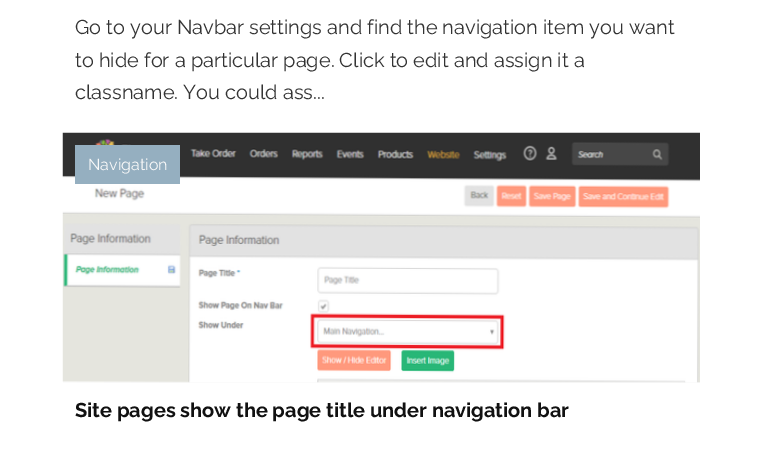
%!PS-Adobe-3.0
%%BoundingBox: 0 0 762 450
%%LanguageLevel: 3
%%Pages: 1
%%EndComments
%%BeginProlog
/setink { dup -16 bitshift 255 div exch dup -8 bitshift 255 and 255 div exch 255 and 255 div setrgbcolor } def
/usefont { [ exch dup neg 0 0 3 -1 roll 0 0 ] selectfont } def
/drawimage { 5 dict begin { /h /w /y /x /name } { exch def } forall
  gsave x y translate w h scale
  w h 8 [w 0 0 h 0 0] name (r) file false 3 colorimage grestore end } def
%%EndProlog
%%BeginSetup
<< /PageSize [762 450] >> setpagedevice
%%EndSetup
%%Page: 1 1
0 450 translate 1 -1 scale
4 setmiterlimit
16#FFFFFF setink
0 0 762 450 rectfill
/Raleway-Regular 20 usefont
16#333333 setink
[
    [(Go to your Navbar settings and find the navigation item you want) 75 34]
    [(to hide for a particular page. Click to edit and assign it a) 75 67]
    [(classname. You could ass...) 75 99]
] { aload pop moveto show } forall
16#F9F9F9 setink
63 382 637 1 rectfill
(img1.raw) 62 132 638 251 drawimage
16#95AFC0 setink
75 145 105 39 rectfill
/Raleway-Regular 16 usefont
16#F9F9F9 setink
88 170 moveto (Navigation) show
/Raleway-Bold 20 usefont
16#111111 setink
75 417 moveto (Site pages show the page title under navigation bar) show
showpage
%%EOF
